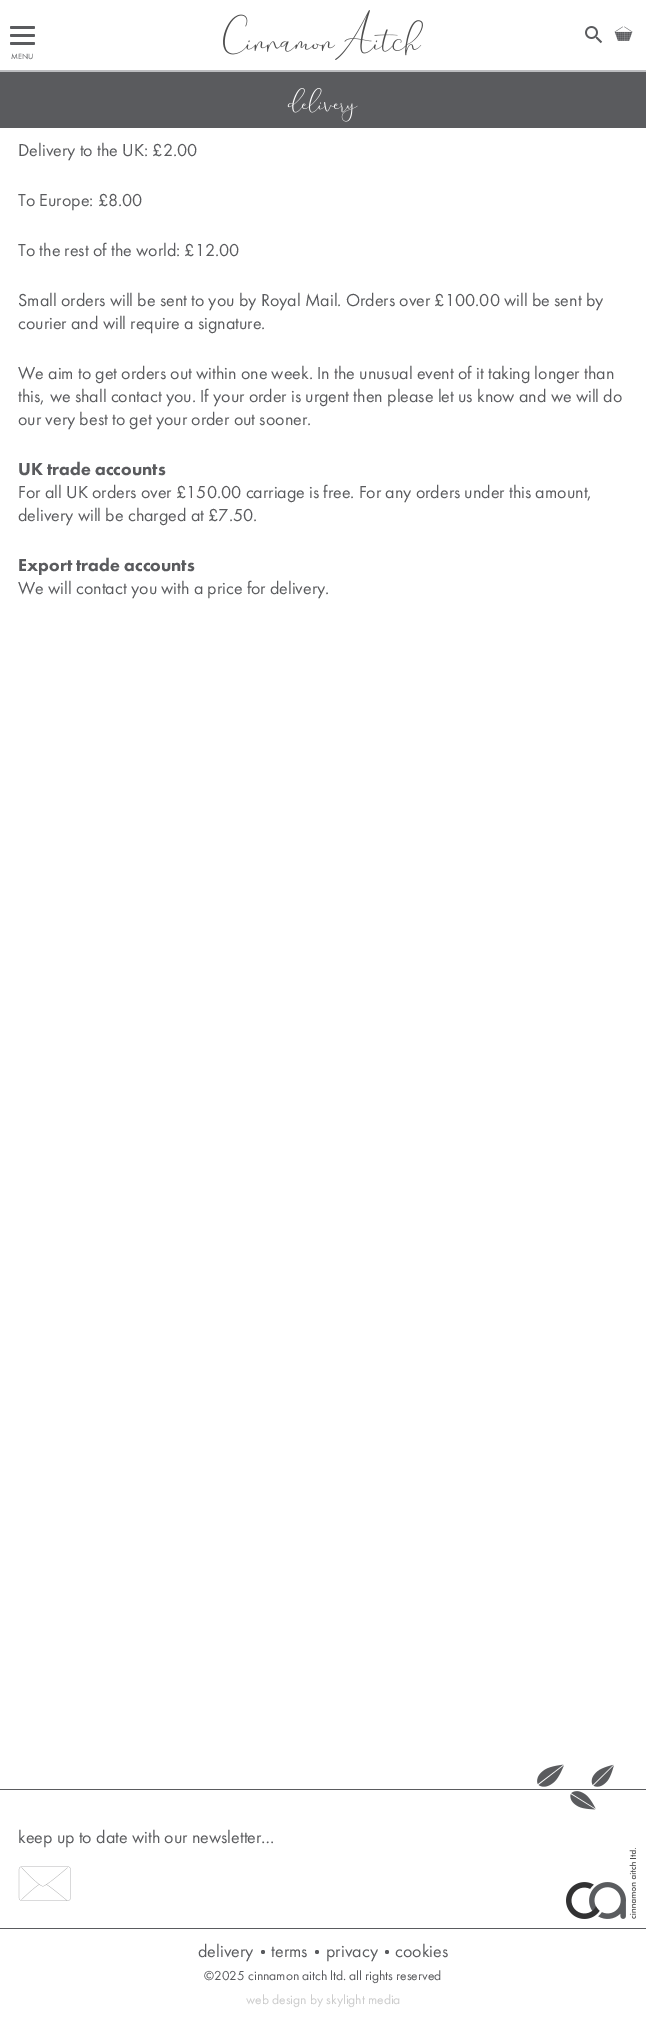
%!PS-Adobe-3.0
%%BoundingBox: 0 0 646 2021
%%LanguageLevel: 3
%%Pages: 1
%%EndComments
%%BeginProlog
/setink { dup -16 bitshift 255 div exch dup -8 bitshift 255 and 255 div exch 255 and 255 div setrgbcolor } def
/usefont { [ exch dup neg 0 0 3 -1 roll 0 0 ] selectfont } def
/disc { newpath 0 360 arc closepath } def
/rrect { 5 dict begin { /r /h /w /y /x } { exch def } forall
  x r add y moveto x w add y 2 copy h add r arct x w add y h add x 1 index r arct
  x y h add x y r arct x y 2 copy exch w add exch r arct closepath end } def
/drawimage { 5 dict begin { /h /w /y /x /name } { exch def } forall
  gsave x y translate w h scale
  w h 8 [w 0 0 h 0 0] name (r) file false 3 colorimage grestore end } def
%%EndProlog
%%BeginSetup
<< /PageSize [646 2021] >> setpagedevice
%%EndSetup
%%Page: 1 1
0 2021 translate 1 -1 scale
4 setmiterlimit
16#FFFFFF setink
0 0 646 2021 rectfill
16#BCBDC0 setink
0 70 646 2 rectfill
(img1.raw) 223 10 200 50 drawimage
(img2.raw) 585 26 18 18 drawimage
(img3.raw) 614 26 19 15 drawimage
16#5A5B5E setink
10 26 25 3 1.5 rrect fill
10 34 25 3 1.5 rrect fill
10 42 25 3 1.5 rrect fill
/FuturaPT-Regular 8 usefont
11 59 moveto (MENU) show
0 72 646 56 rectfill
(img4.raw) 287 88 71 34 drawimage
/FuturaPT-Regular 18 usefont
[
    [(Delivery to the UK: £2.00) 18 156]
    [(To Europe: £8.00) 18 206]
    [(To the rest of the world: £12.00) 18 256]
    [(Small orders will be sent to you by Royal Mail. Orders over £100.00 will be sent by) 18 306]
    [(courier and will require a signature.) 18 329]
    [(We aim to get orders out within one week. In the unusual event of it taking longer than) 18 379]
    [(this, we shall contact you. If your order is urgent then please let us know and we will do) 18 402]
    [(our very best to get your order out sooner.) 18 425]
] { aload pop moveto show } forall
/FuturaPT-Black 18 usefont
18 475 moveto (UK trade accounts) show
/FuturaPT-Regular 18 usefont
18 498 moveto (For all UK orders over £150.00 carriage is free. For any orders under this amount,) show
18 521 moveto (delivery will be charged at £7.50.) show
/FuturaPT-Black 18 usefont
18 571 moveto (Export trade accounts) show
/FuturaPT-Regular 18 usefont
18 594 moveto (We will contact you with a price for delivery.) show
0 1789 646 1 rectfill
(img5.raw) 537 1764 77 46 drawimage
18 1843 moveto (keep up to date with our newsletter…) show
(img6.raw) 18 1866 53 35 drawimage
(img7.raw) 566 1848 70 71 drawimage
0 1928 646 1 rectfill
198 1957 moveto (delivery) show
263 1952 2 disc fill
271 1957 moveto (terms) show
317 1952 2 disc fill
326 1957 moveto (privacy) show
387 1952 2 disc fill
395 1957 moveto (cookies) show
/FuturaPT-Regular 13.5 usefont
204 1980 moveto (©2025 cinnamon aitch ltd. all rights reserved) show
16#CCCCCC setink
246 2004 moveto (web design by skylight media) show
showpage
%%EOF
